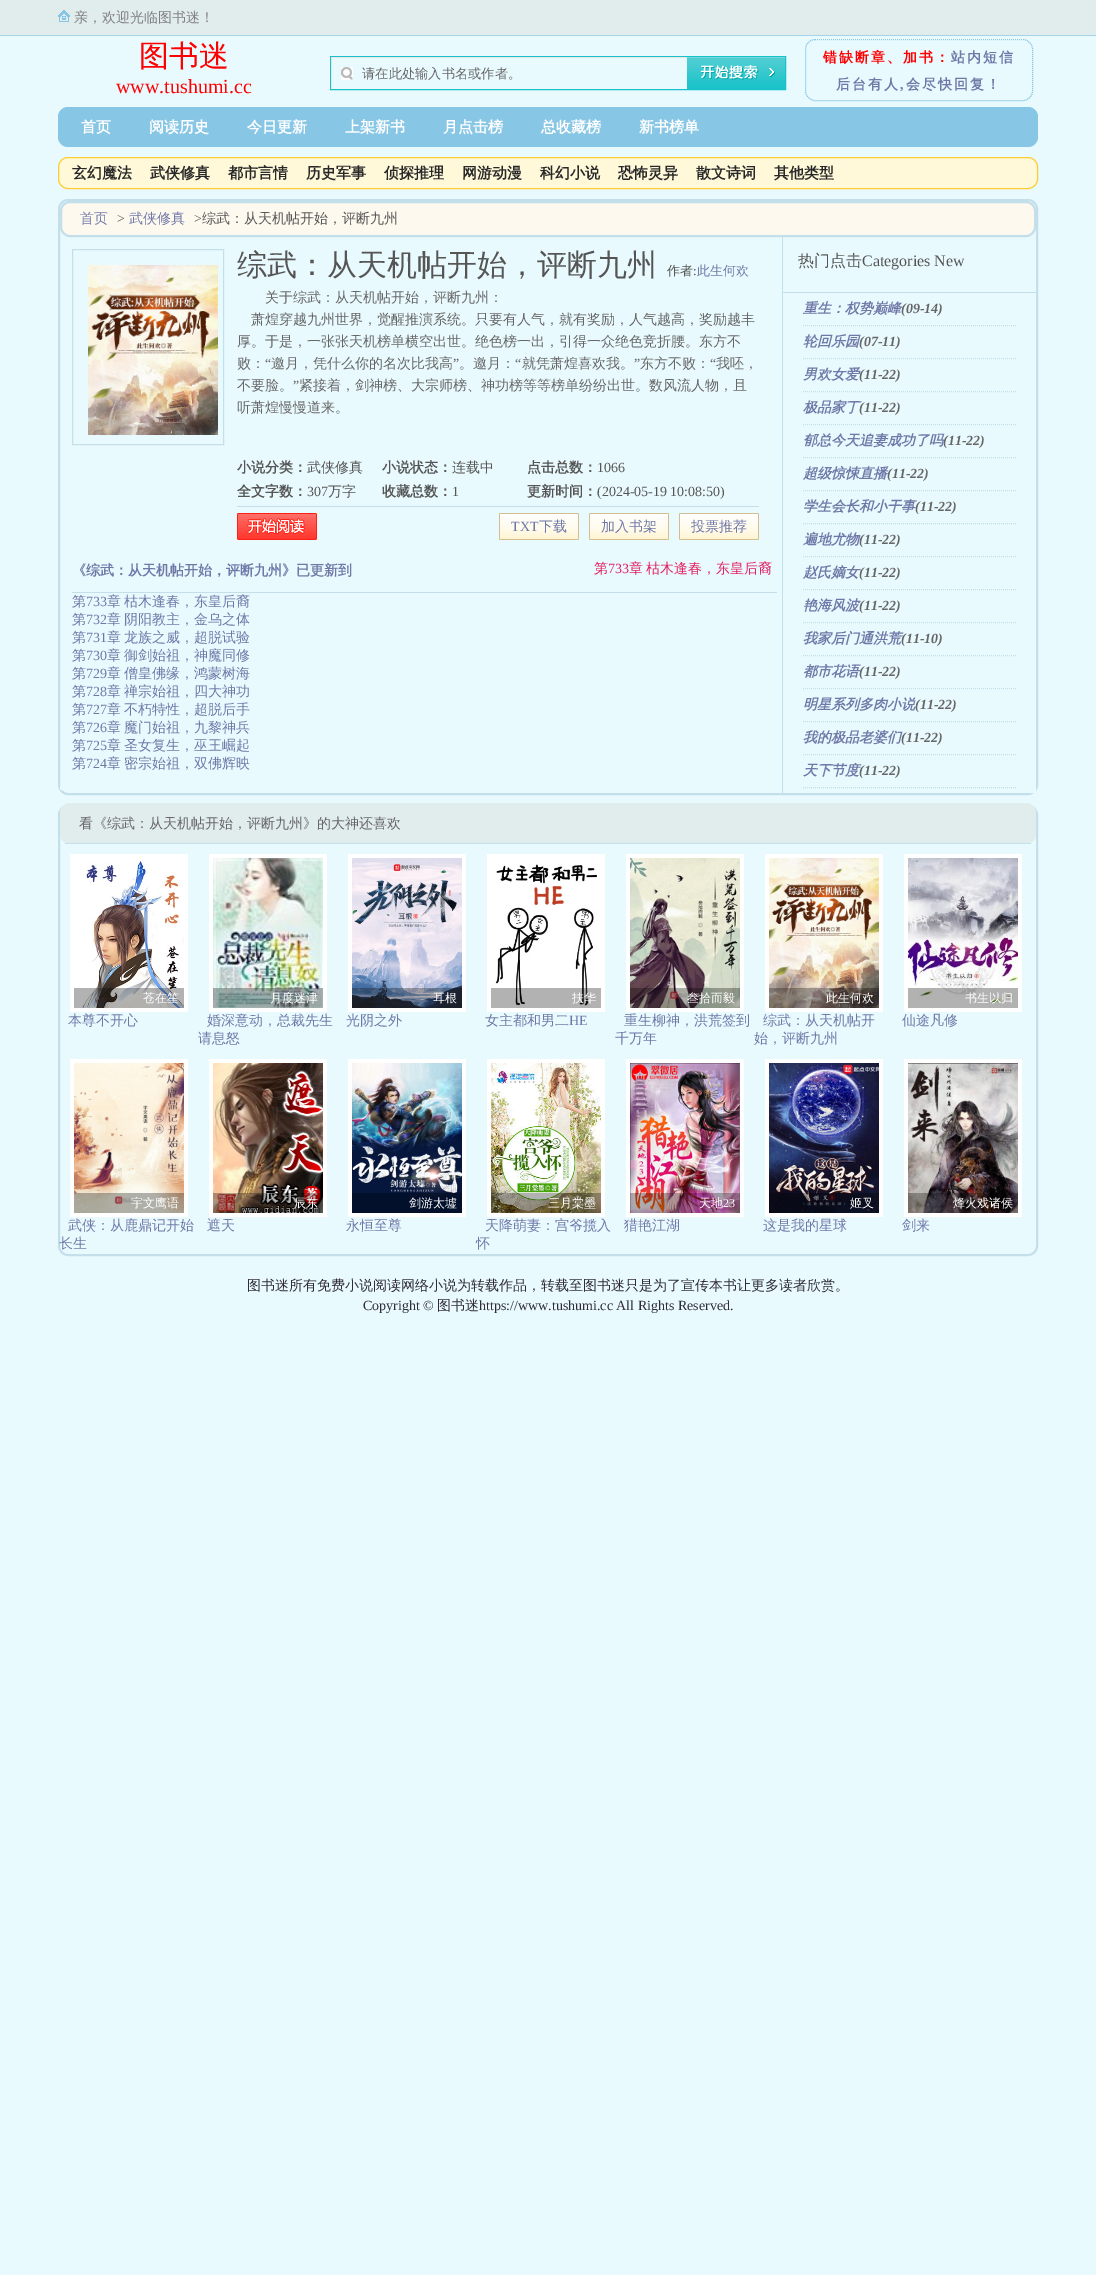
%!PS-Adobe-3.0
%%BoundingBox: 0 0 1096 2275
%%LanguageLevel: 3
%%Pages: 1
%%EndComments
%%BeginProlog
/setink { dup -16 bitshift 255 div exch dup -8 bitshift 255 and 255 div exch 255 and 255 div setrgbcolor } def
/usefont { [ exch dup neg 0 0 3 -1 roll 0 0 ] selectfont } def
/setalpha { dup .setfillconstantalpha .setstrokeconstantalpha } def
/rrect { 5 dict begin { /r /h /w /y /x } { exch def } forall
  x r add y moveto x w add y 2 copy h add r arct x w add y h add x 1 index r arct
  x y h add x y r arct x y 2 copy exch w add exch r arct closepath end } def
/drawimage { 5 dict begin { /h /w /y /x /name } { exch def } forall
  gsave x y translate w h scale
  w h 8 [w 0 0 h 0 0] name (r) file false 3 colorimage grestore end } def
%%EndProlog
%%BeginSetup
<< /PageSize [1096 2275] /PageUsesTransparency true >> setpagedevice
%%EndSetup
%%Page: 1 1
0 .pushpdf14devicefilter
0 2275 translate 1 -1 scale
4 setmiterlimit
16#E9FAFF setink
0 0 1096 2275 rectfill
16#E1ECED setink
0 0 1096 35 rectfill
16#A6D3E8 setink
0 35 1096 1 rectfill
(img1.raw) 58 10 12 12 drawimage
/WenQuanYiZenHei-Medium 14 usefont
16#808080 setink
74 22 moveto (亲，欢迎光临图书迷！) show
/WenQuanYiZenHei-Medium 30 usefont
16#FF0000 setink
139 66 moveto (图书迷) show
/LiberationSerif-Regular 20 usefont
116 93 moveto (www.tushumi.cc) show
16#18C2C8 setink
330.5 56.5 455 33 rectstroke
(img2.raw) 341 67 12 13 drawimage
16#E6E6E6 setink
331 57 355 1 rectfill
331 57 1 32 rectfill
/WenQuanYiZenHei-Medium 13.25 usefont
16#666666 setink
362 78 moveto (请在此处输入书名或作者。) show
(img3.raw) 687 57 98 32 drawimage
16#88C6E5 setink
[1 1] 0 setdash
815 39.5 moveto 1023 39.5 lineto 1028 39.5 1032.5 44 1032.5 49 curveto 1032.5 91 lineto 1032.5 96 1028 100.5 1023 100.5 curveto 815 100.5 lineto 810 100.5 805.5 96 805.5 91 curveto 805.5 49 lineto 805.5 44 810 39.5 815 39.5 curveto closepath stroke
/WenQuanYiZenHei-Bold 14 usefont
16#FF0000 setink
823 62 moveto 2 0 (错缺断章、加书：) ashow
16#6F78A7 setink
951 62 moveto 2 0 (站内短信) ashow
836 89 moveto 2 0 (后台有人) ashow
/LiberationSerif-Bold 14 usefont
900 89 moveto 2 0 (,) ashow
/WenQuanYiZenHei-Bold 14 usefont
906 89 moveto 2 0 (会尽快回复！) ashow
16#88C6E5 setink
58 107 980 40 10 rrect fill
/WenQuanYiZenHei-Bold 15 usefont
16#FFFFFF setink
[
    [(首页) 81 132]
    [(阅读历史) 149 132]
    [(今日更新) 247 132]
    [(上架新书) 345 132]
    [(月点击榜) 443 132]
    [(总收藏榜) 541 132]
    [(新书榜单) 639 132]
] { aload pop moveto show } forall
16#FFF9D9 setink
58.5 157.5 979 31 9.5 rrect gsave fill grestore
16#FFCC33 setink
[] 0 setdash
stroke
16#282828 setink
[
    [(玄幻魔法) 72 178]
    [(武侠修真) 150 178]
    [(都市言情) 228 178]
    [(历史军事) 306 178]
    [(侦探推理) 384 178]
    [(网游动漫) 462 178]
    [(科幻小说) 540 178]
    [(恐怖灵异) 618 178]
    [(散文诗词) 696 178]
    [(其他类型) 774 178]
] { aload pop moveto show } forall
16#C3DFEA setink
2 setlinewidth
59 200 978 594 9 rrect stroke
16#FEF9EF setink
61 202 974 34 9 rrect gsave fill grestore
16#C3DFEA setink
stroke
/WenQuanYiZenHei-Medium 14 usefont
16#6F78A7 setink
80 223 moveto (首页) show
/LiberationSerif-Regular 14 usefont
16#555555 setink
117 223 moveto (>) show
/WenQuanYiZenHei-Medium 14 usefont
16#6F78A7 setink
129 223 moveto (武侠修真) show
/LiberationSerif-Regular 14 usefont
16#555555 setink
194 223 moveto (>) show
/WenQuanYiZenHei-Medium 14 usefont
202 223 moveto (综武：从天机帖开始，评断九州) show
16#E9FAFF setink
60 786 2 4 rectfill
16#C3DFEA setink
1 setlinewidth
72.5 249.5 151 195 rectstroke
(img4.raw) 88 265 130 170 drawimage
/WenQuanYiZenHei-Medium 30 usefont
16#555555 setink
237 275 moveto (综武：从天机帖开始，评断九州) show
/WenQuanYiZenHei-Medium 13 usefont
667 275 moveto (作者) show
/LiberationSerif-Regular 13 usefont
693 275 moveto (:) show
/WenQuanYiZenHei-Medium 13 usefont
16#6F78A7 setink
697 275 moveto (此生何欢) show
/WenQuanYiZenHei-Medium 14 usefont
16#666666 setink
[
    [(关于综武：从天机帖开始，评断九州：) 265 302]
    [(萧煌穿越九州世界，觉醒推演系统。只要有人气，就有奖励，人气越高，奖励越丰) 251 324]
    [(厚。于是，一张张天机榜单横空出世。绝色榜一出，引得一众绝色竞折腰。东方不) 237 346]
    [(败：) 237 368]
] { aload pop moveto show } forall
/LiberationSerif-Regular 14 usefont
265 368 moveto (“) show
/WenQuanYiZenHei-Medium 14 usefont
271 368 moveto (邀月，凭什么你的名次比我高) show
/LiberationSerif-Regular 14 usefont
453 368 moveto (”) show
/WenQuanYiZenHei-Medium 14 usefont
459 368 moveto (。邀月：) show
/LiberationSerif-Regular 14 usefont
515 368 moveto (“) show
/WenQuanYiZenHei-Medium 14 usefont
522 368 moveto (就凭萧煌喜欢我。) show
/LiberationSerif-Regular 14 usefont
634 368 moveto (”) show
/WenQuanYiZenHei-Medium 14 usefont
640 368 moveto (东方不败：) show
/LiberationSerif-Regular 14 usefont
710 368 moveto (“) show
/WenQuanYiZenHei-Medium 14 usefont
716 368 moveto (我呸，) show
237 390 moveto (不要脸。) show
/LiberationSerif-Regular 14 usefont
293 390 moveto (”) show
/WenQuanYiZenHei-Medium 14 usefont
299 390 moveto (紧接着，剑神榜、大宗师榜、神功榜等等榜单纷纷出世。数风流人物，且) show
237 412 moveto (听萧煌慢慢道来。) show
/WenQuanYiZenHei-Bold 14 usefont
16#555555 setink
237 472 moveto (小说分类：) show
/WenQuanYiZenHei-Medium 14 usefont
307 472 moveto (武侠修真) show
/WenQuanYiZenHei-Bold 14 usefont
382 472 moveto (小说状态：) show
/WenQuanYiZenHei-Medium 14 usefont
452 472 moveto (连载中) show
/WenQuanYiZenHei-Bold 14 usefont
527 472 moveto (点击总数：) show
/LiberationSerif-Regular 14 usefont
597 472 moveto (1066) show
/WenQuanYiZenHei-Bold 14 usefont
237 496 moveto (全文字数：) show
/LiberationSerif-Regular 14 usefont
307 496 moveto (307) show
/WenQuanYiZenHei-Medium 14 usefont
328 496 moveto (万字) show
/WenQuanYiZenHei-Bold 14 usefont
382 496 moveto (收藏总数：) show
/LiberationSerif-Regular 14 usefont
452 496 moveto (1) show
/WenQuanYiZenHei-Bold 14 usefont
527 496 moveto (更新时间：) show
/LiberationSerif-Regular 14 usefont
597 496 moveto (\(2024-05-19 10:08:50\)) show
16#C3DFEA setink
237 506 522 1 rectfill
(img5.raw) 237 513 80 27 drawimage
(img6.raw) 499 513 80 27 drawimage
16#6F78A7 setink
511 531 moveto (TXT) show
/WenQuanYiZenHei-Medium 14 usefont
539 531 moveto (下载) show
(img6.raw) 589 513 80 27 drawimage
601 531 moveto (加入书架) show
(img6.raw) 679 513 80 27 drawimage
691 531 moveto (投票推荐) show
16#C3DFEA setink
72 592 705 1 rectfill
/WenQuanYiZenHei-Bold 14 usefont
16#6F78A7 setink
72 575 moveto (《综武：从天机帖开始，评断九州》已更新到) show
/WenQuanYiZenHei-Medium 14 usefont
16#E12160 setink
594 573 moveto (第) show
/LiberationSerif-Regular 14 usefont
608 573 moveto (733) show
/WenQuanYiZenHei-Medium 14 usefont
629 573 moveto -1 0 32 (章 枯木逢春，东皇后裔) widthshow
16#6F78A7 setink
72 606 moveto (第) show
/LiberationSerif-Regular 14 usefont
86 606 moveto (733) show
/WenQuanYiZenHei-Medium 14 usefont
107 606 moveto -1 0 32 (章 枯木逢春，东皇后裔) widthshow
72 624 moveto (第) show
/LiberationSerif-Regular 14 usefont
86 624 moveto (732) show
/WenQuanYiZenHei-Medium 14 usefont
107 624 moveto -1 0 32 (章 阴阳教主，金乌之体) widthshow
72 642 moveto (第) show
/LiberationSerif-Regular 14 usefont
86 642 moveto (731) show
/WenQuanYiZenHei-Medium 14 usefont
107 642 moveto -1 0 32 (章 龙族之威，超脱试验) widthshow
72 660 moveto (第) show
/LiberationSerif-Regular 14 usefont
86 660 moveto (730) show
/WenQuanYiZenHei-Medium 14 usefont
107 660 moveto -1 0 32 (章 御剑始祖，神魔同修) widthshow
72 678 moveto (第) show
/LiberationSerif-Regular 14 usefont
86 678 moveto (729) show
/WenQuanYiZenHei-Medium 14 usefont
107 678 moveto -1 0 32 (章 僧皇佛缘，鸿蒙树海) widthshow
72 696 moveto (第) show
/LiberationSerif-Regular 14 usefont
86 696 moveto (728) show
/WenQuanYiZenHei-Medium 14 usefont
107 696 moveto -1 0 32 (章 禅宗始祖，四大神功) widthshow
72 714 moveto (第) show
/LiberationSerif-Regular 14 usefont
86 714 moveto (727) show
/WenQuanYiZenHei-Medium 14 usefont
107 714 moveto -1 0 32 (章 不朽特性，超脱后手) widthshow
72 732 moveto (第) show
/LiberationSerif-Regular 14 usefont
86 732 moveto (726) show
/WenQuanYiZenHei-Medium 14 usefont
107 732 moveto -1 0 32 (章 魔门始祖，九黎神兵) widthshow
72 750 moveto (第) show
/LiberationSerif-Regular 14 usefont
86 750 moveto (725) show
/WenQuanYiZenHei-Medium 14 usefont
107 750 moveto -1 0 32 (章 圣女复生，巫王崛起) widthshow
72 768 moveto (第) show
/LiberationSerif-Regular 14 usefont
86 768 moveto (724) show
/WenQuanYiZenHei-Medium 14 usefont
107 768 moveto -1 0 32 (章 密宗始祖，双佛辉映) widthshow
[
    [1029 786 7 7 16#E9FAFF]
    [782 237 1 556 16#C3DFEA]
    [783 292 253 1 16#C3DFEA]
] { aload pop setink rectfill } forall
/WenQuanYiZenHei-Medium 16 usefont
16#555555 setink
798 266 moveto (热门点击) show
/LiberationSerif-Regular 16 usefont
862 266 moveto (Categories New) show
16#C3DFEA setink
[1 1] 0 setdash
803 325.5 moveto 1016 325.5 lineto stroke
/WenQuanYiZenHei-BoldItalic 14 usefont
16#6F78A7 setink
803 313 moveto (重生：权势巅峰) show
/LiberationSerif-BoldItalic 14 usefont
16#666666 setink
901 313 moveto (\(09-14\)) show
16#C3DFEA setink
803 358.5 moveto 1016 358.5 lineto stroke
/WenQuanYiZenHei-BoldItalic 14 usefont
16#6F78A7 setink
803 346 moveto (轮回乐园) show
/LiberationSerif-BoldItalic 14 usefont
16#666666 setink
859 346 moveto (\(07-11\)) show
16#C3DFEA setink
803 391.5 moveto 1016 391.5 lineto stroke
/WenQuanYiZenHei-BoldItalic 14 usefont
16#6F78A7 setink
803 379 moveto (男欢女爱) show
/LiberationSerif-BoldItalic 14 usefont
16#666666 setink
859 379 moveto (\(11-22\)) show
16#C3DFEA setink
803 424.5 moveto 1016 424.5 lineto stroke
/WenQuanYiZenHei-BoldItalic 14 usefont
16#6F78A7 setink
803 412 moveto (极品家丁) show
/LiberationSerif-BoldItalic 14 usefont
16#666666 setink
859 412 moveto (\(11-22\)) show
16#C3DFEA setink
803 457.5 moveto 1016 457.5 lineto stroke
/WenQuanYiZenHei-BoldItalic 14 usefont
16#6F78A7 setink
803 445 moveto (郁总今天追妻成功了吗) show
/LiberationSerif-BoldItalic 14 usefont
16#666666 setink
943 445 moveto (\(11-22\)) show
16#C3DFEA setink
803 490.5 moveto 1016 490.5 lineto stroke
/WenQuanYiZenHei-BoldItalic 14 usefont
16#6F78A7 setink
803 478 moveto (超级惊悚直播) show
/LiberationSerif-BoldItalic 14 usefont
16#666666 setink
887 478 moveto (\(11-22\)) show
16#C3DFEA setink
803 523.5 moveto 1016 523.5 lineto stroke
/WenQuanYiZenHei-BoldItalic 14 usefont
16#6F78A7 setink
803 511 moveto (学生会长和小干事) show
/LiberationSerif-BoldItalic 14 usefont
16#666666 setink
915 511 moveto (\(11-22\)) show
16#C3DFEA setink
803 556.5 moveto 1016 556.5 lineto stroke
/WenQuanYiZenHei-BoldItalic 14 usefont
16#6F78A7 setink
803 544 moveto (遍地尤物) show
/LiberationSerif-BoldItalic 14 usefont
16#666666 setink
859 544 moveto (\(11-22\)) show
16#C3DFEA setink
803 589.5 moveto 1016 589.5 lineto stroke
/WenQuanYiZenHei-BoldItalic 14 usefont
16#6F78A7 setink
803 577 moveto (赵氏嫡女) show
/LiberationSerif-BoldItalic 14 usefont
16#666666 setink
859 577 moveto (\(11-22\)) show
16#C3DFEA setink
803 622.5 moveto 1016 622.5 lineto stroke
/WenQuanYiZenHei-BoldItalic 14 usefont
16#6F78A7 setink
803 610 moveto (艳海风波) show
/LiberationSerif-BoldItalic 14 usefont
16#666666 setink
859 610 moveto (\(11-22\)) show
16#C3DFEA setink
803 655.5 moveto 1016 655.5 lineto stroke
/WenQuanYiZenHei-BoldItalic 14 usefont
16#6F78A7 setink
803 643 moveto (我家后门通洪荒) show
/LiberationSerif-BoldItalic 14 usefont
16#666666 setink
901 643 moveto (\(11-10\)) show
16#C3DFEA setink
803 688.5 moveto 1016 688.5 lineto stroke
/WenQuanYiZenHei-BoldItalic 14 usefont
16#6F78A7 setink
803 676 moveto (都市花语) show
/LiberationSerif-BoldItalic 14 usefont
16#666666 setink
859 676 moveto (\(11-22\)) show
16#C3DFEA setink
803 721.5 moveto 1016 721.5 lineto stroke
/WenQuanYiZenHei-BoldItalic 14 usefont
16#6F78A7 setink
803 709 moveto (明星系列多肉小说) show
/LiberationSerif-BoldItalic 14 usefont
16#666666 setink
915 709 moveto (\(11-22\)) show
16#C3DFEA setink
803 754.5 moveto 1016 754.5 lineto stroke
/WenQuanYiZenHei-BoldItalic 14 usefont
16#6F78A7 setink
803 742 moveto (我的极品老婆们) show
/LiberationSerif-BoldItalic 14 usefont
16#666666 setink
901 742 moveto (\(11-22\)) show
16#C3DFEA setink
803 787.5 moveto 1016 787.5 lineto stroke
/WenQuanYiZenHei-BoldItalic 14 usefont
16#6F78A7 setink
803 775 moveto (天下节度) show
/LiberationSerif-BoldItalic 14 usefont
16#666666 setink
859 775 moveto (\(11-22\)) show
16#C3DFEA setink
2 setlinewidth
[] 0 setdash
59 806 978 449 9 rrect stroke
16#E1ECED setink
60 803 976 41 10 rrect fill
16#C3DFEA setink
65 843 966 1 rectfill
/WenQuanYiZenHei-Medium 14 usefont
16#666666 setink
79 828 moveto (看《综武：从天机帖开始，评断九州》的大神还喜欢) show
16#FFFFFF setink
70 854 118 158 rectfill
(img7.raw) 82 859 102 149 drawimage
0.3 setalpha
16#000000 setink
74 988 110 20 rectfill
/WenQuanYiZenHei-Medium 12 usefont
1 setalpha
16#FFFFFF setink
143 1002 moveto (苍在笙) show
/WenQuanYiZenHei-Medium 14 usefont
16#6F78A7 setink
68 1025 moveto (本尊不开心) show
16#FFFFFF setink
209 854 118 158 rectfill
(img8.raw) 213 858 110 150 drawimage
0.3 setalpha
16#000000 setink
213 988 110 20 rectfill
/WenQuanYiZenHei-Medium 12 usefont
1 setalpha
16#FFFFFF setink
270 1002 moveto (月度迷津) show
/WenQuanYiZenHei-Medium 14 usefont
16#6F78A7 setink
207 1025 moveto (婚深意动，总裁先生) show
198 1043 moveto (请息怒) show
16#FFFFFF setink
348 854 118 158 rectfill
(img9.raw) 352 858 110 150 drawimage
0.3 setalpha
16#000000 setink
352 988 110 20 rectfill
/WenQuanYiZenHei-Medium 12 usefont
1 setalpha
16#FFFFFF setink
433 1002 moveto (耳根) show
/WenQuanYiZenHei-Medium 14 usefont
16#6F78A7 setink
346 1025 moveto (光阴之外) show
16#FFFFFF setink
487 854 118 158 rectfill
(img10.raw) 495 864 102 142 drawimage
0.3 setalpha
16#000000 setink
491 988 110 20 rectfill
/WenQuanYiZenHei-Medium 12 usefont
1 setalpha
16#FFFFFF setink
572 1002 moveto (扶华) show
/WenQuanYiZenHei-Medium 14 usefont
16#6F78A7 setink
485 1025 moveto (女主都和男二) show
/LiberationSerif-Regular 14 usefont
569 1025 moveto (HE) show
16#FFFFFF setink
626 854 118 158 rectfill
(img11.raw) 630 858 110 150 drawimage
0.3 setalpha
16#000000 setink
630 988 110 20 rectfill
/WenQuanYiZenHei-Medium 12 usefont
1 setalpha
16#FFFFFF setink
687 1002 moveto (叁拾而毅) show
/WenQuanYiZenHei-Medium 14 usefont
16#6F78A7 setink
624 1025 moveto (重生柳神，洪荒签到) show
615 1043 moveto (千万年) show
16#FFFFFF setink
765 854 118 158 rectfill
(img12.raw) 769 858 110 150 drawimage
0.3 setalpha
16#000000 setink
769 988 110 20 rectfill
/WenQuanYiZenHei-Medium 12 usefont
1 setalpha
16#FFFFFF setink
826 1002 moveto (此生何欢) show
/WenQuanYiZenHei-Medium 14 usefont
16#6F78A7 setink
763 1025 moveto (综武：从天机帖开) show
754 1043 moveto (始，评断九州) show
16#FFFFFF setink
904 854 118 158 rectfill
(img13.raw) 908 858 110 147 drawimage
0.3 setalpha
16#000000 setink
908 988 110 20 rectfill
/WenQuanYiZenHei-Medium 12 usefont
1 setalpha
16#FFFFFF setink
965 1002 moveto (书生以归) show
/WenQuanYiZenHei-Medium 14 usefont
16#6F78A7 setink
902 1025 moveto (仙途凡修) show
16#FFFFFF setink
70 1059 118 158 rectfill
(img14.raw) 74 1063 110 150 drawimage
0.3 setalpha
16#000000 setink
74 1193 110 20 rectfill
/WenQuanYiZenHei-Medium 12 usefont
1 setalpha
16#FFFFFF setink
131 1207 moveto (宇文鹰语) show
/WenQuanYiZenHei-Medium 14 usefont
16#6F78A7 setink
68 1230 moveto (武侠：从鹿鼎记开始) show
59 1248 moveto (长生) show
16#FFFFFF setink
209 1059 118 158 rectfill
(img15.raw) 213 1063 110 150 drawimage
0.3 setalpha
16#000000 setink
213 1193 110 20 rectfill
/WenQuanYiZenHei-Medium 12 usefont
1 setalpha
16#FFFFFF setink
294 1207 moveto (辰东) show
/WenQuanYiZenHei-Medium 14 usefont
16#6F78A7 setink
207 1230 moveto (遮天) show
16#FFFFFF setink
348 1059 118 158 rectfill
(img16.raw) 352 1063 110 150 drawimage
0.3 setalpha
16#000000 setink
352 1193 110 20 rectfill
/WenQuanYiZenHei-Medium 12 usefont
1 setalpha
16#FFFFFF setink
409 1207 moveto (剑游太墟) show
/WenQuanYiZenHei-Medium 14 usefont
16#6F78A7 setink
346 1230 moveto (永恒至尊) show
16#FFFFFF setink
487 1059 118 158 rectfill
(img17.raw) 491 1063 110 150 drawimage
0.3 setalpha
16#000000 setink
491 1193 110 20 rectfill
/WenQuanYiZenHei-Medium 12 usefont
1 setalpha
16#FFFFFF setink
548 1207 moveto (三月棠墨) show
/WenQuanYiZenHei-Medium 14 usefont
16#6F78A7 setink
485 1230 moveto (天降萌妻：宫爷揽入) show
476 1248 moveto (怀) show
16#FFFFFF setink
626 1059 118 158 rectfill
(img18.raw) 630 1063 110 150 drawimage
0.3 setalpha
16#000000 setink
630 1193 110 20 rectfill
/WenQuanYiZenHei-Medium 12 usefont
1 setalpha
16#FFFFFF setink
699 1207 moveto (天地) show
/LiberationSerif-Regular 12 usefont
723 1207 moveto (23) show
/WenQuanYiZenHei-Medium 14 usefont
16#6F78A7 setink
624 1230 moveto (猎艳江湖) show
16#FFFFFF setink
765 1059 118 158 rectfill
(img19.raw) 769 1063 110 150 drawimage
0.3 setalpha
16#000000 setink
769 1193 110 20 rectfill
/WenQuanYiZenHei-Medium 12 usefont
1 setalpha
16#FFFFFF setink
850 1207 moveto (姬叉) show
/WenQuanYiZenHei-Medium 14 usefont
16#6F78A7 setink
763 1230 moveto (这是我的星球) show
16#FFFFFF setink
904 1059 118 158 rectfill
(img20.raw) 908 1063 110 150 drawimage
0.3 setalpha
16#000000 setink
908 1193 110 20 rectfill
/WenQuanYiZenHei-Medium 12 usefont
1 setalpha
16#FFFFFF setink
953 1207 moveto (烽火戏诸侯) show
/WenQuanYiZenHei-Medium 14 usefont
16#6F78A7 setink
902 1230 moveto (剑来) show
16#302B35 setink
247 1290 moveto (图书迷所有免费小说阅读网络小说为转载作品，转载至图书迷只是为了宣传本书让更多读者欣赏。) show
/LiberationSerif-Regular 14 usefont
363 1310 moveto (Copyright ©) show
/WenQuanYiZenHei-Medium 14 usefont
437 1310 moveto (图书迷) show
/LiberationSerif-Regular 14 usefont
479 1310 moveto (https://www.tushumi.cc All Rights Reserved.) show
.poppdf14devicefilter showpage
%%EOF
